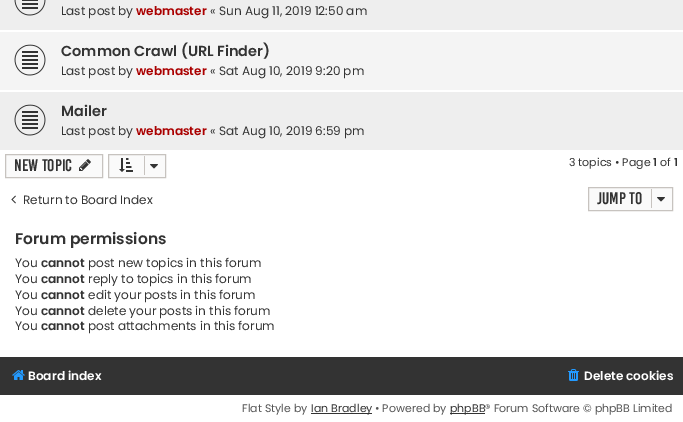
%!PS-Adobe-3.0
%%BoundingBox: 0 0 683 422
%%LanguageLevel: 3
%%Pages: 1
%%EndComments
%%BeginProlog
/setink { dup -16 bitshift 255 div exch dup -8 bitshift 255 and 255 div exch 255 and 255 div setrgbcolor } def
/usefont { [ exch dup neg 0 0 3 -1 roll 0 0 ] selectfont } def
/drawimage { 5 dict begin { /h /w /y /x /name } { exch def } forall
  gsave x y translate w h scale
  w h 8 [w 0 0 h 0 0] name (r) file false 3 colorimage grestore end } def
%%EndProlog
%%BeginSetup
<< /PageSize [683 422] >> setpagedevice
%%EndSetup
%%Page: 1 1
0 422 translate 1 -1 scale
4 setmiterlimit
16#FFFFFF setink
0 0 683 422 rectfill
16#EEEEEE setink
0 0 683 30 rectfill
(img1.raw) 14 0 32 16 drawimage
/Poppins-Regular 12.1 usefont
16#333333 setink
61 15 moveto (Last post by) show
/Poppins-SemiBold 12.1 usefont
16#AA0000 setink
136 15 moveto (webmaster) show
/Poppins-Regular 12.1 usefont
16#333333 setink
210 15 moveto (« Sun Aug 11, 2019 12:50 am) show
16#F4F4F4 setink
0 32 683 58 rectfill
(img2.raw) 14 44 32 32 drawimage
/Poppins-SemiBold 14.5 usefont
16#333333 setink
61 56 moveto (Common Crawl \(URL Finder\)) show
/Poppins-Regular 12.1 usefont
61 75 moveto (Last post by) show
/Poppins-SemiBold 12.1 usefont
16#AA0000 setink
136 75 moveto (webmaster) show
/Poppins-Regular 12.1 usefont
16#333333 setink
210 75 moveto (« Sat Aug 10, 2019 9:20 pm) show
16#EEEEEE setink
0 92 683 58 rectfill
(img3.raw) 14 104 32 32 drawimage
/Poppins-SemiBold 14.5 usefont
16#333333 setink
61 116 moveto (Mailer) show
/Poppins-Regular 12.1 usefont
61 135 moveto (Last post by) show
/Poppins-SemiBold 12.1 usefont
16#AA0000 setink
136 135 moveto (webmaster) show
/Poppins-Regular 12.1 usefont
16#333333 setink
210 135 moveto (« Sat Aug 10, 2019 6:59 pm) show
16#FAFAFA setink
5.5 154.5 moveto 102.5 154.5 lineto 102.5 177.5 lineto 5.5 177.5 lineto closepath gsave fill grestore
16#C7C3BF setink
stroke
/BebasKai-Regular 13 usefont
16#333333 setink
14 171 moveto (New Topic) show
(img4.raw) 79 159 12 12 drawimage
16#FAFAFA setink
108.5 154.5 moveto 165.5 154.5 lineto 165.5 177.5 lineto 108.5 177.5 lineto closepath gsave fill grestore
16#C7C3BF setink
stroke
(img5.raw) 119 158 14 14 drawimage
144 156 1 19 rectfill
(img6.raw) 150 164 8 5 drawimage
/Poppins-Regular 11 usefont
16#333333 setink
569 166 moveto (3 topics • Page) show
/Poppins-SemiBold 11 usefont
653 166 moveto (1) show
/Poppins-Regular 11 usefont
660 166 moveto (of) show
/Poppins-SemiBold 11 usefont
674 166 moveto (1) show
(img7.raw) 11 195 5 9 drawimage
/Poppins-Regular 12.1 usefont
23 204 moveto (Return to Board Index) show
16#FAFAFA setink
588.5 187.5 moveto 672.5 187.5 lineto 672.5 210.5 lineto 588.5 210.5 lineto closepath gsave fill grestore
16#C7C3BF setink
stroke
/BebasKai-Regular 13 usefont
16#333333 setink
597 204 moveto (Jump to) show
16#C7C3BF setink
651 189 1 19 rectfill
(img6.raw) 657 197 8 5 drawimage
/Poppins-SemiBold 15.5 usefont
16#333333 setink
15 244 moveto (Forum permissions) show
/Poppins-Regular 12.1 usefont
15 267 moveto (You) show
/Poppins-SemiBold 12.1 usefont
41 267 moveto (cannot) show
/Poppins-Regular 12.1 usefont
88 267 moveto (post new topics in this forum) show
15 283 moveto (You) show
/Poppins-SemiBold 12.1 usefont
41 283 moveto (cannot) show
/Poppins-Regular 12.1 usefont
88 283 moveto (reply to topics in this forum) show
15 299 moveto (You) show
/Poppins-SemiBold 12.1 usefont
41 299 moveto (cannot) show
/Poppins-Regular 12.1 usefont
88 299 moveto (edit your posts in this forum) show
15 315 moveto (You) show
/Poppins-SemiBold 12.1 usefont
41 315 moveto (cannot) show
/Poppins-Regular 12.1 usefont
88 315 moveto (delete your posts in this forum) show
15 330 moveto (You) show
/Poppins-SemiBold 12.1 usefont
41 330 moveto (cannot) show
/Poppins-Regular 12.1 usefont
88 330 moveto (post attachments in this forum) show
0 357 683 38 rectfill
(img8.raw) 12 370 13 10 drawimage
/Poppins-SemiBold 12.1 usefont
16#FFFFFF setink
28 380 moveto (Board index) show
(img9.raw) 568 369 11 12 drawimage
584 380 moveto (Delete cookies) show
/Poppins-Regular 11 usefont
16#555555 setink
242 412 moveto (Flat Style by) show
16#333333 setink
311 413 61 1 rectfill
311 412 moveto (Ian Bradley) show
16#555555 setink
375 412 moveto (• Powered by) show
16#333333 setink
450 413 35 1 rectfill
450 412 moveto (phpBB) show
16#555555 setink
485 412 moveto (® Forum Software © phpBB Limited) show
showpage
%%EOF
